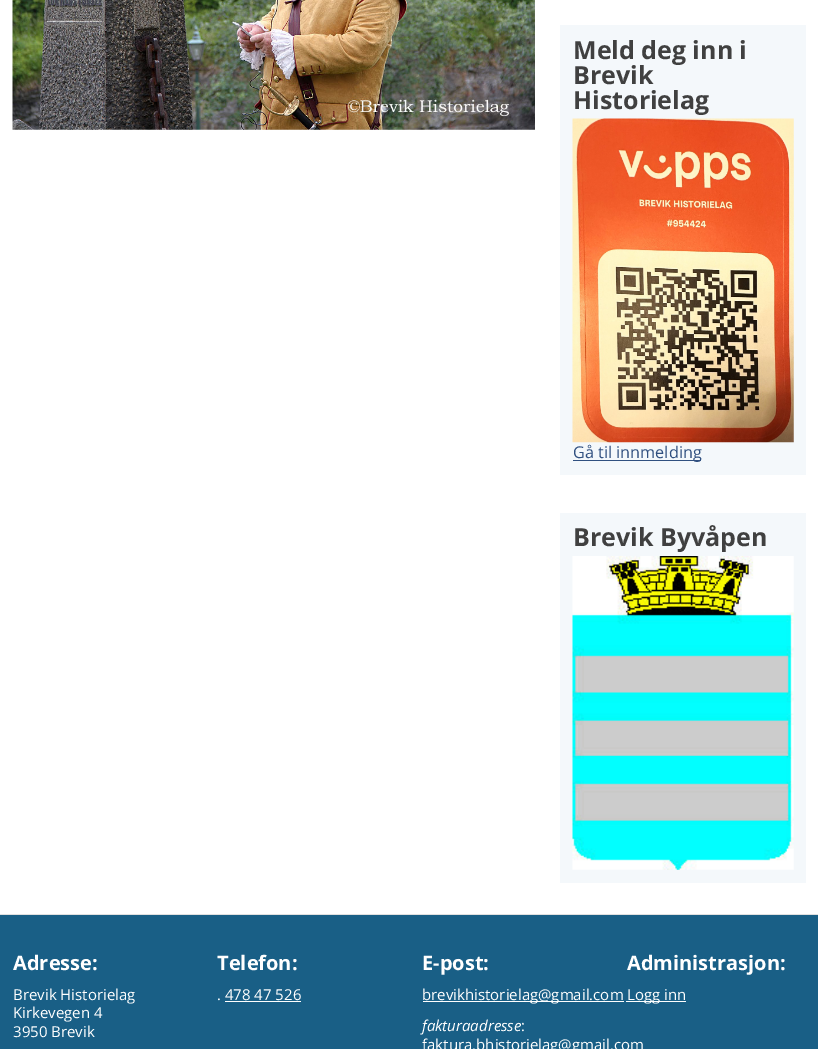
%!PS-Adobe-3.0
%%BoundingBox: 0 0 818 1049
%%LanguageLevel: 3
%%Pages: 1
%%EndComments
%%BeginProlog
/setink { dup -16 bitshift 255 div exch dup -8 bitshift 255 and 255 div exch 255 and 255 div setrgbcolor } def
/usefont { [ exch dup neg 0 0 3 -1 roll 0 0 ] selectfont } def
/drawimage { 5 dict begin { /h /w /y /x /name } { exch def } forall
  gsave x y translate w h scale
  w h 8 [w 0 0 h 0 0] name (r) file false 3 colorimage grestore end } def
%%EndProlog
%%BeginSetup
<< /PageSize [818 1049] >> setpagedevice
%%EndSetup
%%Page: 1 1
0 1049 translate 1 -1 scale
4 setmiterlimit
16#FFFFFF setink
0 0 818 1049 rectfill
(img1.raw) 12 0 523 130 drawimage
16#F4F8FB setink
560 25 246 450 rectfill
/OpenSans-Bold 25 usefont
16#404040 setink
[
    [(Meld deg inn i) 573 59]
    [(Brevik) 573 84]
    [(Historielag) 573 109]
] { aload pop moveto show } forall
(img2.raw) 572 118 222 325 drawimage
16#305080 setink
573 460 128 1 rectfill
/OpenSans-Regular 16.25 usefont
573 458 moveto (Gå til innmelding) show
16#F4F8FB setink
560 513 246 370 rectfill
/OpenSans-Bold 25 usefont
16#404040 setink
573 546 moveto (Brevik Byvåpen) show
(img3.raw) 572 556 222 314 drawimage
16#195F86 setink
0 915 818 134 rectfill
16#E0E0E0 setink
0 914 818 1 rectfill
/OpenSans-Bold 20 usefont
16#FFFFFF setink
13 970 moveto (Adresse:) show
/OpenSans-Regular 15 usefont
[
    [(Brevik Historielag) 13 1000]
    [(Kirkevegen 4) 13 1018]
    [(3950 Brevik) 13 1037]
] { aload pop moveto show } forall
/OpenSans-Bold 20 usefont
217 970 moveto (Telefon:) show
/OpenSans-Regular 15 usefont
217 1000 moveto (. 478 47 526) show
225 1001 76 1 rectfill
/OpenSans-Bold 20 usefont
422 970 moveto (E-post:) show
423 1001 201 1 rectfill
/OpenSans-Regular 15 usefont
422 1000 moveto (brevikhistorielag@gmail.com) show
/OpenSans-Italic 15 usefont
422 1031 moveto (fakturaadresse) show
/OpenSans-Regular 15 usefont
521 1031 moveto (:) show
422 1050 moveto (faktura.bhistorielag@gmail.com) show
/OpenSans-Bold 20 usefont
627 970 moveto (Administrasjon:) show
626 1001 60 1 rectfill
/OpenSans-Regular 15 usefont
627 1000 moveto (Logg inn) show
showpage
%%EOF
